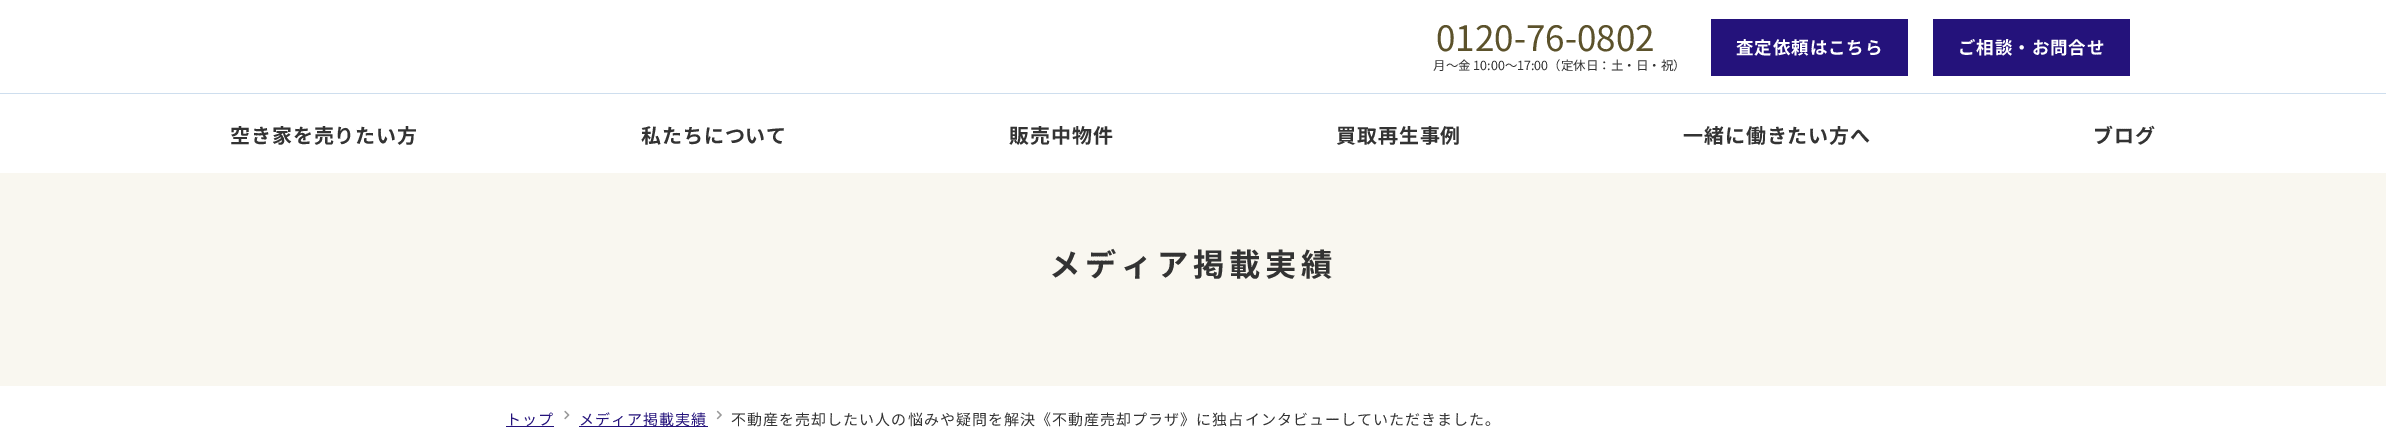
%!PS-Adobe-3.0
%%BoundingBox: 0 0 2386 429
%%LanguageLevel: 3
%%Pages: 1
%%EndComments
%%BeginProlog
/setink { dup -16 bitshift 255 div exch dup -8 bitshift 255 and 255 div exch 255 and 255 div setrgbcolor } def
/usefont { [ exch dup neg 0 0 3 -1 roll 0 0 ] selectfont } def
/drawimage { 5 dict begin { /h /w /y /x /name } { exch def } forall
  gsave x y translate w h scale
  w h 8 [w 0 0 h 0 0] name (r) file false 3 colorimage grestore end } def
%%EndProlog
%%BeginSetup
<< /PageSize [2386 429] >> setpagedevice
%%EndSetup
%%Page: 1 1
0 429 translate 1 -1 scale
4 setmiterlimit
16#FFFFFF setink
0 0 2386 429 rectfill
/NotoSansJP-Regular 35 usefont
16#5C522B setink
1436 51 moveto (0120-76-0802) show
/NotoSansJP-Regular 12.5 usefont
16#333333 setink
1433 70 moveto (月～金 10:00～17:00（定休日：土・日・祝）) show
16#24127B setink
1711 19 197 57 rectfill
/NotoSansJP-Bold 17.5 usefont
16#FFFFFF setink
1736 54 moveto 0.9 0 (査定依頼はこちら) ashow
16#24127B setink
1933 19 197 57 rectfill
16#FFFFFF setink
1958 54 moveto 0.9 0 (ご相談・お問合せ) ashow
16#CEDEEE setink
0 93 2386 1 rectfill
/NotoSansJP-Bold 20 usefont
16#333333 setink
230 143 moveto 0.9 0 (空き家を売りたい方) ashow
641 143 moveto 0.9 0 (私たちについて) ashow
1009 143 moveto 0.9 0 (販売中物件) ashow
1336 143 moveto 0.9 0 (買取再生事例) ashow
1683 143 moveto 0.9 0 (一緒に働きたい方へ) ashow
2093 143 moveto 0.9 0 (ブログ) ashow
16#F9F7F0 setink
0 173 2386 213 rectfill
/NotoSansJP-Bold 31.25 usefont
16#333333 setink
1049 276 moveto 4.75 0 (メディア掲載実績) ashow
16#24127B setink
506 426 48 1 rectfill
/NotoSansJP-Regular 15 usefont
506 425 moveto 1.05 0 (トップ) ashow
(img1.raw) 564 410 6 10 drawimage
579 426 129 1 rectfill
579 425 moveto 1.05 0 (メディア掲載実績) ashow
(img2.raw) 716 410 6 10 drawimage
16#333333 setink
731 425 moveto 1.05 0 (不動産を売却したい人の悩みや疑問を解決《不動産売却プラザ》に独占インタビューしていただきました。) ashow
showpage
%%EOF
